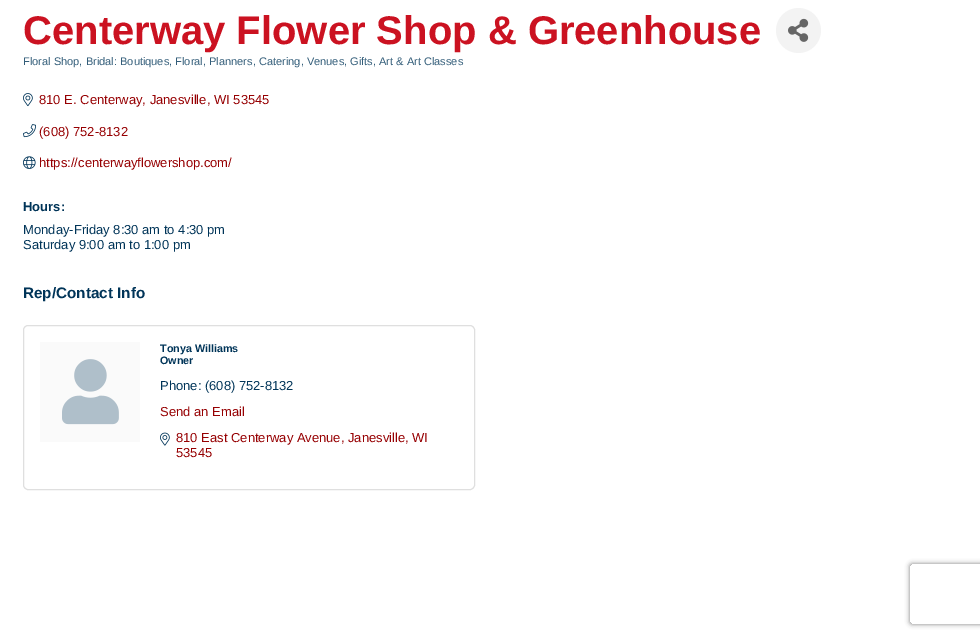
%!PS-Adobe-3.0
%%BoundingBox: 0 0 980 638
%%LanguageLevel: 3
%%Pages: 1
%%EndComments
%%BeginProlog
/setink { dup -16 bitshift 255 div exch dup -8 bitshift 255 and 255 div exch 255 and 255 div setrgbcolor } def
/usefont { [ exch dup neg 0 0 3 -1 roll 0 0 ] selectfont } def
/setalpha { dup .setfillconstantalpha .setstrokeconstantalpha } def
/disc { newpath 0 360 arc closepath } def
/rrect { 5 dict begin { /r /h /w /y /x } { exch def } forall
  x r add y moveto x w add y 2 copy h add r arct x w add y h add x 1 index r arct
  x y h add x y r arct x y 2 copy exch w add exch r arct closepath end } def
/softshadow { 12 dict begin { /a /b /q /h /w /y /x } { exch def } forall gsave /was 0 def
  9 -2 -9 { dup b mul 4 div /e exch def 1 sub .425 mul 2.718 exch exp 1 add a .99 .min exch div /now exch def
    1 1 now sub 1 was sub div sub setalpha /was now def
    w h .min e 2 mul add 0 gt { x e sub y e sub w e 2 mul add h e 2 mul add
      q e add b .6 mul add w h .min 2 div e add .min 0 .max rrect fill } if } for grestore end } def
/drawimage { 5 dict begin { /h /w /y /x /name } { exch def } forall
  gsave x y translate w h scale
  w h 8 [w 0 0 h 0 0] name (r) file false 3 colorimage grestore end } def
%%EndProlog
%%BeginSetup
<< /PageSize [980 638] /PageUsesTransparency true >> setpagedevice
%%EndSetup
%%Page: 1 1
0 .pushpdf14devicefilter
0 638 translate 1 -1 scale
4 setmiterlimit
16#FFFFFF setink
0 0 980 638 rectfill
/LiberationSans-Bold 40 usefont
16#CB1221 setink
23 44 moveto (Centerway Flower Shop & Greenhouse) show
16#F3F3F3 setink
798.5 30.5 22.5 disc fill
(img1.raw) 788 18 21 24 drawimage
/LiberationSans-Regular 11.05 usefont
16#335D79 setink
23 65 moveto (Floral Shop, Bridal: Boutiques, Floral, Planners, Catering, Venues, Gifts, Art & Art Classes) show
(img2.raw) 23 93 10 14 drawimage
/LiberationSans-Regular 13 usefont
16#960002 setink
39 104 moveto (810 E. Centerway, Janesville, WI 53545) show
(img3.raw) 23 124 13 14 drawimage
39 136 moveto (\(608\) 752-8132) show
(img4.raw) 23 156 13 13 drawimage
39 167 moveto (https://centerwayflowershop.com/) show
/LiberationSans-Bold 13 usefont
16#003458 setink
23 211 moveto (Hours:) show
/LiberationSans-Regular 13 usefont
23 234 moveto (Monday-Friday 8:30 am to 4:30 pm) show
23 249 moveto (Saturday 9:00 am to 1:00 pm) show
/LiberationSans-Bold 15.25 usefont
23 298 moveto (Rep/Contact Info) show
16#DFDFDF setink
23.5 325.5 451 164 4.5 rrect stroke
16#FAFAFA setink
40 342 100 100 rectfill
(img5.raw) 62 359 57 66 drawimage
/LiberationSans-Bold 10.75 usefont
16#003458 setink
160 352 moveto (Tonya Williams) show
160 364 moveto (Owner) show
/LiberationSans-Regular 13 usefont
160 390 moveto (Phone: \(608\) 752-8132) show
16#960002 setink
160 416 moveto (Send an Email) show
(img6.raw) 160 432 10 14 drawimage
176 442 moveto (810 East Centerway Avenue, Janesville, WI) show
176 457 moveto (53545) show
gsave
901 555 moveto 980 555 lineto 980 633 lineto 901 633 lineto closepath 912 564 moveto 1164 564 lineto 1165 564 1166 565 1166 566 curveto 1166 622 lineto 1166 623 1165 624 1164 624 curveto 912 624 lineto 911 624 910 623 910 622 curveto 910 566 lineto 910 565 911 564 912 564 curveto closepath eoclip newpath
16#808080 setink
910 564 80 60 2 2.5 1 softshadow
grestore
.poppdf14devicefilter showpage
%%EOF
